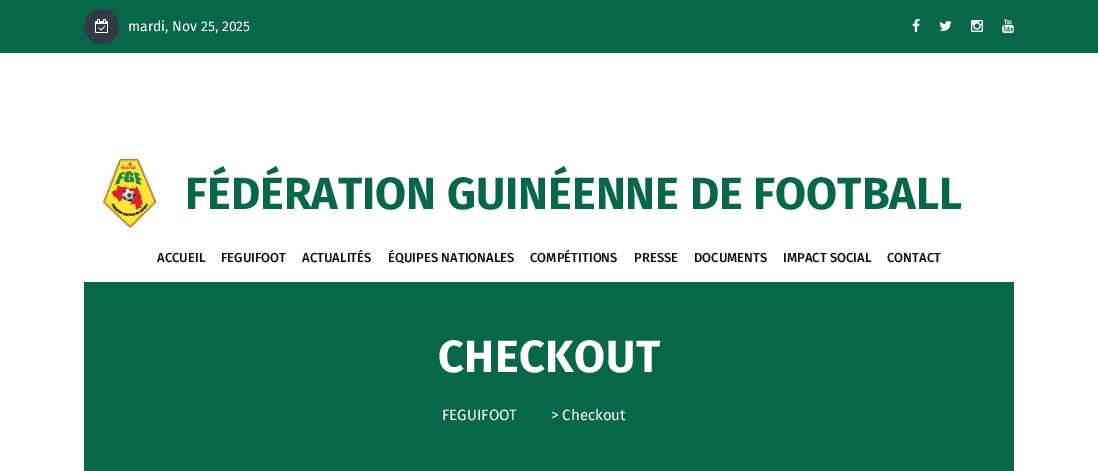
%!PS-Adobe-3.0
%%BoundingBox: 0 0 1098 471
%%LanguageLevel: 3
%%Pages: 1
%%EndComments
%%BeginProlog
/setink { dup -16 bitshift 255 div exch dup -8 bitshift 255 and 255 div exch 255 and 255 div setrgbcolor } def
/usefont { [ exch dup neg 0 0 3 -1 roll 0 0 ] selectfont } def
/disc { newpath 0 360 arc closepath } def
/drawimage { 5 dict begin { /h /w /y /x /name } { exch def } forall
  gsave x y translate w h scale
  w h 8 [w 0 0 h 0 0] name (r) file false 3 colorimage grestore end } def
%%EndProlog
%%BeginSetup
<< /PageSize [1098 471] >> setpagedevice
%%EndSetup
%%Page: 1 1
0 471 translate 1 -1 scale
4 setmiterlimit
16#FFFFFF setink
0 0 1098 471 rectfill
16#08664B setink
0 0 1098 53 rectfill
16#313A47 setink
101.5 26.5 17.5 disc fill
(img1.raw) 95 19 13 14 drawimage
/FiraSans-Regular 14 usefont
16#FFFFFF setink
128 31 moveto (mardi, Nov 25, 2025) show
(img2.raw) 912 19 8 13 drawimage
(img3.raw) 939 21 13 10 drawimage
(img4.raw) 971 20 12 12 drawimage
(img5.raw) 1002 19 12 14 drawimage
(img6.raw) 103 159 54 69 drawimage
/FiraSans-Bold 45 usefont
16#08664B setink
185 209 moveto (FÉDÉRATION GUINÉENNE DE FOOTBALL) show
/FiraSans-Medium 13 usefont
16#101010 setink
[
    [(ACCUEIL) 157 262]
    [(FEGUIFOOT) 221 262]
    [(ACTUALITÉS) 302 262]
    [(ÉQUIPES NATIONALES) 388 262]
    [(COMPÉTITIONS) 530 262]
    [(PRESSE) 634 262]
    [(DOCUMENTS) 694 262]
    [(IMPACT SOCIAL) 783 262]
    [(CONTACT) 887 262]
] { aload pop moveto show } forall
16#08664B setink
84 282 930 189 rectfill
/FiraSans-Bold 45 usefont
16#FFFFFF setink
438 372 moveto 0.5 0 (CHECKOUT) ashow
/FiraSans-Regular 15 usefont
442 420 moveto (FEGUIFOOT) show
551 420 moveto (> Checkout) show
showpage
%%EOF
